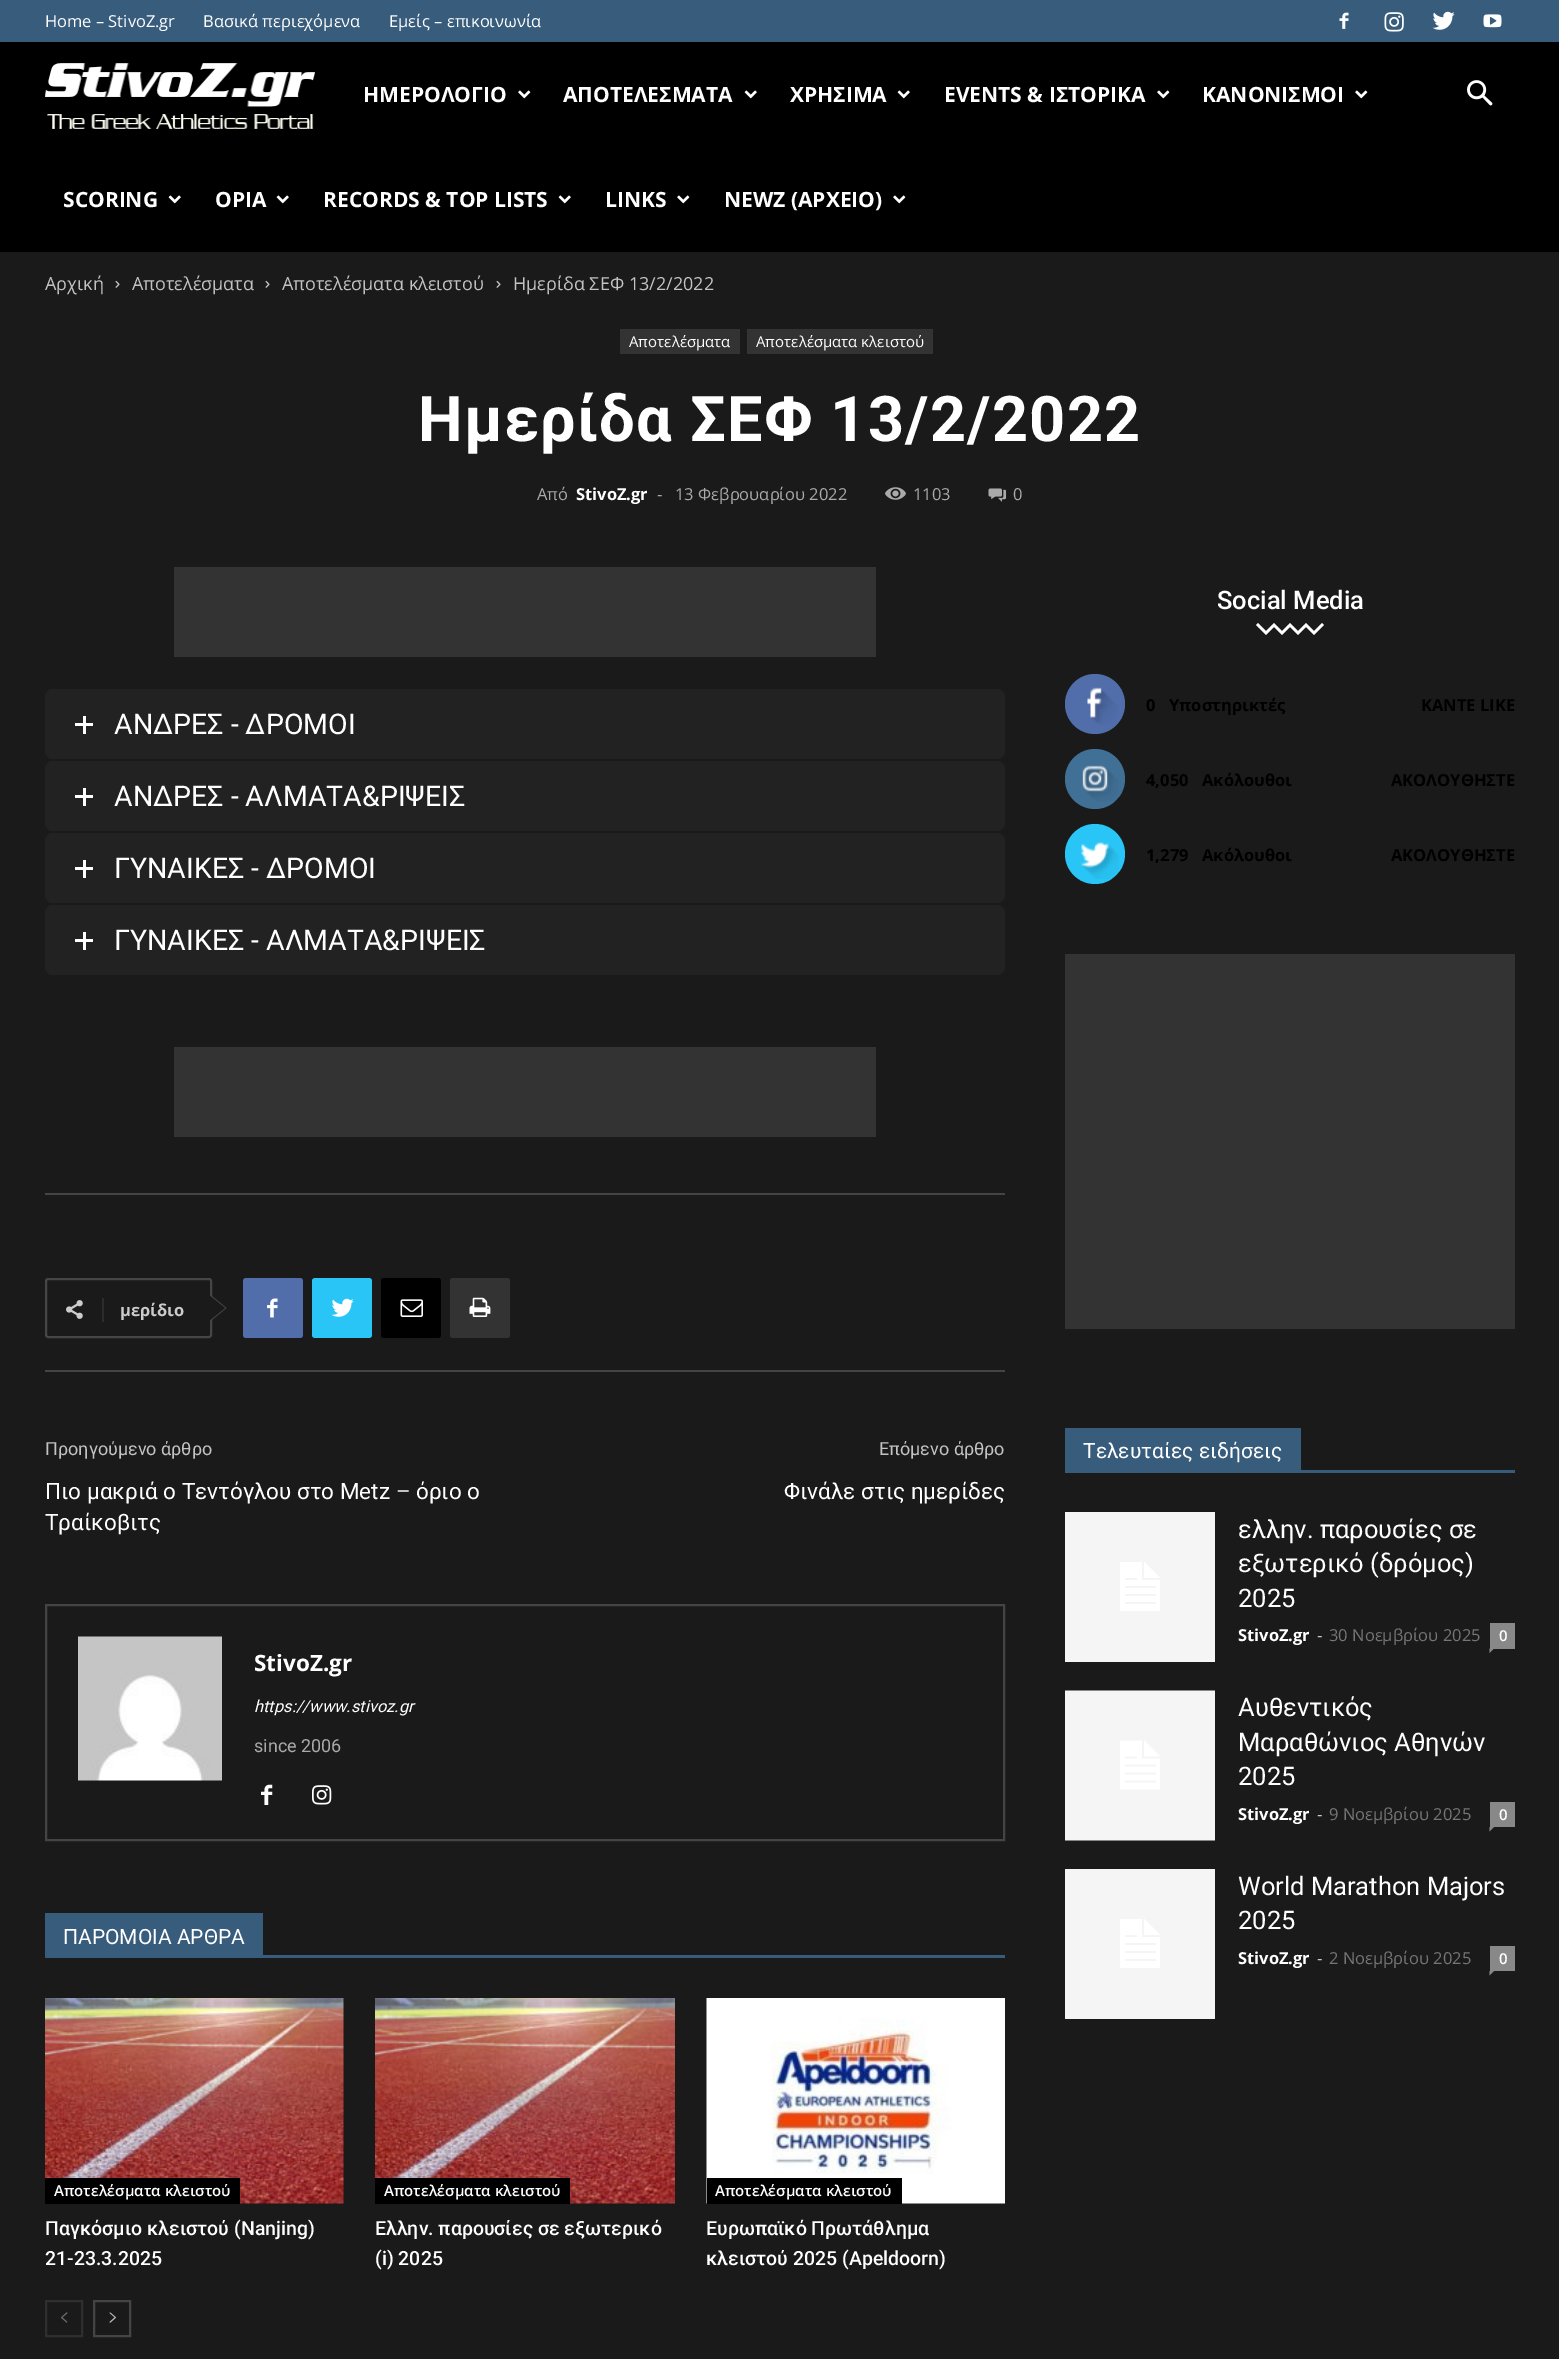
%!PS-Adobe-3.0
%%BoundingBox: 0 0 1559 2359
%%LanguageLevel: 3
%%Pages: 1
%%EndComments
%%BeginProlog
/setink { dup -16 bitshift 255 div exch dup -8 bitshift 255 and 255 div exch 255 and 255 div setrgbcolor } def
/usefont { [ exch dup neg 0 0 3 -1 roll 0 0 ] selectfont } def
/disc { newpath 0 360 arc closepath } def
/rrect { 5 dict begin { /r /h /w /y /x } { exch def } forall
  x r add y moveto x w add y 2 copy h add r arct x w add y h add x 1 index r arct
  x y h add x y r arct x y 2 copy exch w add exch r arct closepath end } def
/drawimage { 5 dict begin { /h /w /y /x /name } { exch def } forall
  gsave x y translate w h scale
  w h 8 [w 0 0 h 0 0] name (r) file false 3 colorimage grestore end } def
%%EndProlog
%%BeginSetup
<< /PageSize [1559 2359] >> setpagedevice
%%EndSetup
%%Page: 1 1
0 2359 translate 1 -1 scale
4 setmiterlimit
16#1A1A1A setink
0 0 1559 2359 rectfill
16#385C7B setink
0 0 1559 42 rectfill
/OpenSans-Regular 16.5 usefont
16#FFFFFF setink
[
    [(Home – StivoZ.gr) 45 27]
    [(Βασικά περιεχόμενα) 203 27]
    [(Εμείς – επικοινωνία) 389 27]
] { aload pop moveto show } forall
(img1.raw) 1339 12 10 17 drawimage
(img2.raw) 1384 12 20 20 drawimage
(img3.raw) 1432 11 23 19 drawimage
(img4.raw) 1483 14 19 14 drawimage
16#000000 setink
0 42 1559 210 rectfill
(img5.raw) 45 63 270 66 drawimage
/OpenSans-Bold 21 usefont
16#FFFFFF setink
363 102 moveto (ΗΜΕΡΟΛΟΓΙΟ) show
(img6.raw) 518 90 13 9 drawimage
563 102 moveto (ΑΠΟΤΕΛΕΣΜΑΤΑ) show
(img7.raw) 744 90 13 9 drawimage
790 102 moveto (ΧΡΗΣΙΜΑ) show
(img7.raw) 897 90 13 9 drawimage
944 102 moveto (EVENTS & ΙΣΤΟΡΙΚΑ) show
(img6.raw) 1157 90 13 9 drawimage
1202 102 moveto (ΚΑΝΟΝΙΣΜΟΙ) show
(img6.raw) 1355 90 13 9 drawimage
63 207 moveto (SCORING) show
(img7.raw) 168 195 13 9 drawimage
215 207 moveto (ΟΡΙΑ) show
(img7.raw) 276 195 13 9 drawimage
323 207 moveto (RECORDS & TOP LISTS) show
(img7.raw) 558 195 13 9 drawimage
605 207 moveto (LINKS) show
(img6.raw) 677 195 13 9 drawimage
724 207 moveto (NEWZ \(ΑΡΧΕΙΟ\)) show
(img6.raw) 893 195 13 9 drawimage
(img8.raw) 1467 80 26 26 drawimage
/OpenSans-Regular 18 usefont
16#C3C3C3 setink
45 290 moveto (Αρχική) show
(img9.raw) 115 280 5 8 drawimage
132 290 moveto (Αποτελέσματα) show
(img9.raw) 265 280 5 8 drawimage
282 290 moveto (Αποτελέσματα κλειστού) show
(img9.raw) 496 280 5 8 drawimage
513 290 moveto (Ημερίδα ΣΕΦ 13/2/2022) show
16#333333 setink
620 329 120 25 rectfill
/OpenSans-Regular 15 usefont
16#FFFFFF setink
629 347 moveto (Αποτελέσματα) show
16#333333 setink
747 329 186 25 rectfill
16#FFFFFF setink
756 347 moveto (Αποτελέσματα κλειστού) show
/Roboto-Bold 63 usefont
418 441 moveto 1.25 0 (Ημερίδα ΣΕΦ 13/2/2022) ashow
/OpenSans-Regular 16.5 usefont
16#AAAAAA setink
537 500 moveto (Από) show
/OpenSans-Bold 16.5 usefont
16#FFFFFF setink
576 500 moveto (StivoZ.gr) show
/OpenSans-Regular 16.5 usefont
16#AAAAAA setink
657 500 moveto (-) show
675 500 moveto (13 Φεβρουαρίου 2022) show
(img10.raw) 885 487 21 13 drawimage
913 500 moveto (1103) show
(img11.raw) 988 488 19 14 drawimage
1013 500 moveto (0) show
16#333333 setink
174 567 702 90 rectfill
16#222222 setink
45 689 960 70 8 rrect fill
16#FFFFFF setink
75 723 18 3 rectfill
83 716 3 18 rectfill
/Roboto-Regular 28.5 usefont
114 734 moveto (ΑΝΔΡΕΣ - ΔΡΟΜΟΙ) show
16#222222 setink
45 761 960 70 8 rrect fill
16#FFFFFF setink
75 795 18 3 rectfill
83 788 3 18 rectfill
114 806 moveto (ΑΝΔΡΕΣ - ΑΛΜΑΤΑ&ΡΙΨΕΙΣ) show
16#222222 setink
45 833 960 70 8 rrect fill
16#FFFFFF setink
75 867 18 3 rectfill
83 860 3 18 rectfill
114 878 moveto (ΓΥΝΑΙΚΕΣ - ΔΡΟΜΟΙ) show
16#222222 setink
45 905 960 70 8 rrect fill
16#FFFFFF setink
75 939 18 3 rectfill
83 932 3 18 rectfill
114 950 moveto (ΓΥΝΑΙΚΕΣ - ΑΛΜΑΤΑ&ΡΙΨΕΙΣ) show
[
    [174 1047 702 90 16#333333]
    [45 1193 960 2 16#444444]
    [45 1370 960 2 16#444444]
] { aload pop setink rectfill } forall
16#464646 setink
2 setlinewidth
46 1279 165 58 2 rrect stroke
16#434343 setink
210 1321.5 moveto 210 1294.5 lineto 226.5 1308 lineto closepath fill
(img12.raw) 66 1300 17 19 drawimage
16#2C2C2C setink
102 1298 2 24 rectfill
/OpenSans-Bold 16.5 usefont
16#CCCCCC setink
120 1316 moveto (μερίδιο) show
16#1A1A1A setink
210 1320 moveto 210 1296 lineto 225 1308 lineto closepath fill
16#516EAB setink
243 1278 60 60 3 rrect fill
(img13.raw) 267 1298 11 20 drawimage
16#29C5F6 setink
312 1278 60 60 3 rrect fill
(img14.raw) 331 1298 23 19 drawimage
16#000000 setink
381 1278 60 60 3 rrect fill
(img15.raw) 400 1299 23 18 drawimage
16#333333 setink
450 1278 60 60 3 rrect fill
(img16.raw) 469 1297 22 20 drawimage
/Roboto-Regular 18 usefont
16#C3C3C3 setink
45 1455 moveto (Προηγούμενο άρθρο) show
/Roboto-Regular 22.5 usefont
16#FFFFFF setink
45 1499 moveto (Πιο μακριά ο Τεντόγλου στο Metz – όριο ο) show
45 1530 moveto (Τραίκοβιτς) show
/Roboto-Regular 18 usefont
16#C3C3C3 setink
879 1455 moveto (Επόμενο άρθρο) show
/Roboto-Regular 22.5 usefont
16#FFFFFF setink
784 1499 moveto (Φινάλε στις ημερίδες) show
16#444444 setink
46 1605 958 235 rectstroke
(img17.raw) 78 1636 144 145 drawimage
/OpenSans-Bold 22.5 usefont
16#FFFFFF setink
254 1671 moveto (StivoZ.gr) show
/Roboto-Italic 16.5 usefont
254 1712 moveto (https://www.stivoz.gr) show
/Roboto-Regular 18 usefont
16#AAAAAA setink
254 1752 moveto (since 2006) show
(img18.raw) 261 1784 12 21 drawimage
(img19.raw) 312 1785 20 20 drawimage
16#385C7B setink
45 1955 960 3 rectfill
45 1913 218 42 rectfill
/Roboto-Regular 21 usefont
16#FFFFFF setink
63 1944 moveto (ΠΑΡΟΜΟΙΑ ΑΡΘΡΑ) show
(img20.raw) 45 1998 299 206 drawimage
16#000000 setink
45 2178 195 26 rectfill
/OpenSans-SemiBold 15 usefont
16#FFFFFF setink
54 2196 moveto (Αποτελέσματα κλειστού) show
/Roboto-Medium 19.5 usefont
45 2235 moveto (Παγκόσμιο κλειστού \(Nanjing\)) show
45 2265 moveto (21-23.3.2025) show
(img21.raw) 375 1998 300 206 drawimage
16#000000 setink
375 2178 195 26 rectfill
/OpenSans-SemiBold 15 usefont
16#FFFFFF setink
384 2196 moveto (Αποτελέσματα κλειστού) show
/Roboto-Medium 19.5 usefont
375 2235 moveto (Ελλην. παρουσίες σε εξωτερικό) show
375 2265 moveto (\(i\) 2025) show
(img22.raw) 706 1998 299 206 drawimage
16#000000 setink
707 2178 195 26 rectfill
/OpenSans-SemiBold 15 usefont
16#FFFFFF setink
715 2196 moveto (Αποτελέσματα κλειστού) show
/Roboto-Medium 19.5 usefont
706 2235 moveto (Ευρωπαϊκό Πρωτάθλημα) show
706 2265 moveto (κλειστού 2025 \(Apeldoorn\)) show
16#2F2F2F setink
46 2301 36 35 rectstroke
(img23.raw) 61 2312 7 11 drawimage
16#444444 setink
94 2301 36 35 rectstroke
(img24.raw) 109 2312 7 11 drawimage
/Roboto-Medium 25.5 usefont
16#FFFFFF setink
1217 609 moveto (Social Media) show
1324 625 moveto 1314 635 lineto 1306 627 lineto 1298 635 lineto 1290 627 lineto 1282 635 lineto 1274 627 lineto 1266 635 lineto 1256 625 lineto 1258 623 lineto 1266 631 lineto 1274 623 lineto 1282 631 lineto 1290 623 lineto 1298 631 lineto 1306 623 lineto 1314 631 lineto 1322 623 lineto closepath fill
16#516EAB setink
1095 704 30 disc fill
(img25.raw) 1087 687 30 38 drawimage
/OpenSans-Bold 16.5 usefont
16#000000 setink
[
    [(0) 1146 711]
    [(Υποστηρικτές) 1169 711]
    [(ΚΑΝΤΕ LIKE) 1421 711]
] { aload pop moveto show } forall
16#417096 setink
1095 779 30 disc fill
(img26.raw) 1082 765 37 37 drawimage
16#000000 setink
[
    [(4,050) 1146 786]
    [(Ακόλουθοι) 1202 786]
    [(ΑΚΟΛΟΥΘΗΣΤΕ) 1391 786]
] { aload pop moveto show } forall
16#29C5F6 setink
1095 854 30 disc fill
(img27.raw) 1080 842 39 37 drawimage
16#000000 setink
[
    [(1,279) 1146 861]
    [(Ακόλουθοι) 1202 861]
    [(ΑΚΟΛΟΥΘΗΣΤΕ) 1391 861]
] { aload pop moveto show } forall
[
    [1065 954 450 375 16#333333]
    [1065 1470 450 3 16#385C7B]
    [1065 1428 236 42 16#385C7B]
] { aload pop setink rectfill } forall
/Roboto-Regular 21 usefont
16#FFFFFF setink
1083 1458 moveto (Τελευταίες ειδήσεις) show
(img28.raw) 1065 1512 150 150 drawimage
/Roboto-Regular 25.5 usefont
[
    [(ελλην. παρουσίες σε) 1238 1538]
    [(εξωτερικό \(δρόμος\)) 1238 1572]
    [(2025) 1238 1607]
] { aload pop moveto show } forall
/OpenSans-Bold 16.5 usefont
1238 1641 moveto (StivoZ.gr) show
/OpenSans-Regular 16.5 usefont
16#CCCCCC setink
1317 1641 moveto (-) show
16#767676 setink
1329 1641 moveto (30 Νοεμβρίου 2025) show
16#888888 setink
1490 1623 25 26 rectfill
/OpenSans-SemiBold 15 usefont
16#FFFFFF setink
1499 1641 moveto (0) show
16#888888 setink
1489.5 1648.5 moveto 1494 1648.5 lineto 1489.5 1653 lineto closepath fill
(img29.raw) 1065 1690 150 151 drawimage
/Roboto-Regular 25.5 usefont
16#FFFFFF setink
[
    [(Αυθεντικός) 1238 1716]
    [(Μαραθώνιος Αθηνών) 1238 1751]
    [(2025) 1238 1785]
] { aload pop moveto show } forall
/OpenSans-Bold 16.5 usefont
1238 1820 moveto (StivoZ.gr) show
/OpenSans-Regular 16.5 usefont
16#CCCCCC setink
1317 1820 moveto (-) show
16#767676 setink
1329 1820 moveto (9 Νοεμβρίου 2025) show
16#888888 setink
1490 1802 25 25 rectfill
/OpenSans-SemiBold 15 usefont
16#FFFFFF setink
1499 1820 moveto (0) show
16#888888 setink
1489.5 1827 moveto 1494 1827 lineto 1489.5 1831.5 lineto closepath fill
(img28.raw) 1065 1869 150 150 drawimage
/Roboto-Regular 25.5 usefont
16#FFFFFF setink
1238 1895 moveto (World Marathon Majors) show
1238 1929 moveto (2025) show
/OpenSans-Bold 16.5 usefont
1238 1964 moveto (StivoZ.gr) show
/OpenSans-Regular 16.5 usefont
16#CCCCCC setink
1317 1964 moveto (-) show
16#767676 setink
1329 1964 moveto (2 Νοεμβρίου 2025) show
16#888888 setink
1490 1946 25 25 rectfill
/OpenSans-SemiBold 15 usefont
16#FFFFFF setink
1499 1964 moveto (0) show
16#888888 setink
1489.5 1971 moveto 1494 1971 lineto 1489.5 1975.5 lineto closepath fill
showpage
%%EOF
